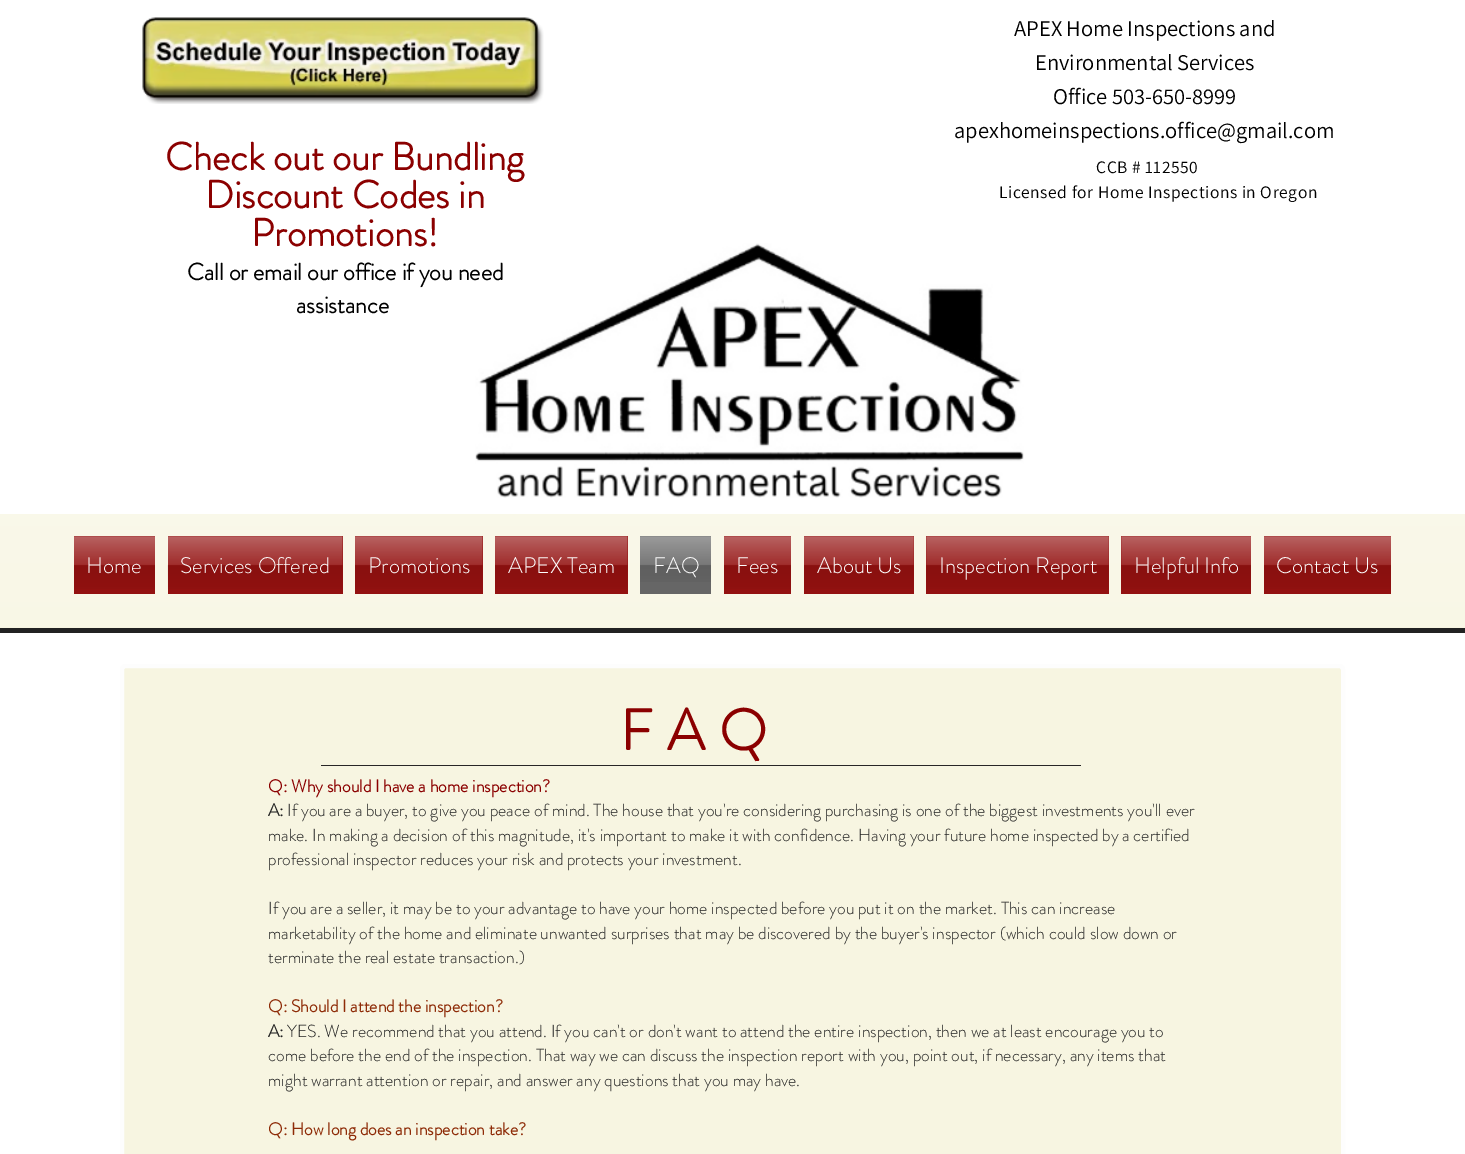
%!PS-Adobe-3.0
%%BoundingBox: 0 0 1465 1154
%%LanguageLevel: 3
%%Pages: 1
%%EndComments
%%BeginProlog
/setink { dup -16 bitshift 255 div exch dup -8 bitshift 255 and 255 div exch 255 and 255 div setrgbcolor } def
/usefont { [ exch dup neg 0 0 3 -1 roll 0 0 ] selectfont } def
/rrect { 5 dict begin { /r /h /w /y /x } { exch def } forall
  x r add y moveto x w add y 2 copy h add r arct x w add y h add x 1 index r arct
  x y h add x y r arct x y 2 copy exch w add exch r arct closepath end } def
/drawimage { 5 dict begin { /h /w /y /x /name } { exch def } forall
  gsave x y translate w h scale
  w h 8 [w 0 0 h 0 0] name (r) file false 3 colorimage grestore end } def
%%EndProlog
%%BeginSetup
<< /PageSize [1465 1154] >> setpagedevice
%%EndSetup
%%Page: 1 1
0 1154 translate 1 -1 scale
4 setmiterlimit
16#FFFFFF setink
0 0 1465 1154 rectfill
(img1.raw) 142 17 402 87 drawimage
/Assistant-Regular 22.5 usefont
16#000000 setink
[
    [(APEX Home Inspections and) 1014 36]
    [(Environmental Services) 1035 70]
    [(Office 503-650-8999) 1053 104]
    [(apexhomeinspections.office@gmail.com) 954 138]
] { aload pop moveto show } forall
/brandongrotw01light-Bold 38.75 usefont
16#8B0000 setink
[
    [(Check out our Bundling) 165 170]
    [(Discount Codes in) 205 208]
    [(Promotions!) 251 246]
] { aload pop moveto show } forall
(img2.raw) 475 243 549 255 drawimage
/brandongrotw01light-Bold 23.75 usefont
16#000000 setink
187 280 moveto (Call or email our office if you need) show
296 313 moveto (assistance) show
/Assistant-Regular 17.5 usefont
1096 173 moveto 0.55 0 (CCB # 112550) ashow
999 198 moveto 0.55 0 (Licensed for Home Inspections in Oregon) ashow
16#F7F5E1 setink
0 514 1465 114 rectfill
16#222222 setink
0 628 1465 5 rectfill
(img3.raw) 0 514 1465 113 drawimage
16#931110 setink
74 536 81 58 rectfill
(img4.raw) 74 536 81 53 drawimage
/brandongrotw01light-Light 22.5 usefont
16#FDFDFD setink
86 573 moveto (Home) show
16#931110 setink
168 536 175 58 rectfill
(img5.raw) 167 536 176 53 drawimage
16#FDFDFD setink
180 573 moveto (Services Offered) show
16#931110 setink
355 536 128 58 rectfill
(img6.raw) 355 536 128 53 drawimage
16#FDFDFD setink
368 573 moveto (Promotions) show
16#931110 setink
495 536 133 58 rectfill
(img7.raw) 495 536 133 53 drawimage
16#FDFDFD setink
508 573 moveto (APEX Team) show
16#666666 setink
640 536 71 58 rectfill
(img8.raw) 640 536 71 46 drawimage
16#FDFDFD setink
653 573 moveto (FAQ) show
16#931110 setink
724 536 67 58 rectfill
(img9.raw) 724 536 67 53 drawimage
16#FDFDFD setink
736 573 moveto (Fees) show
16#931110 setink
804 536 110 58 rectfill
(img10.raw) 804 536 110 53 drawimage
16#FDFDFD setink
817 573 moveto (About Us) show
16#931110 setink
926 536 183 58 rectfill
(img11.raw) 926 536 183 53 drawimage
16#FDFDFD setink
939 573 moveto (Inspection Report) show
16#931110 setink
1121 536 130 58 rectfill
(img12.raw) 1121 536 130 53 drawimage
16#FDFDFD setink
1134 573 moveto (Helpful Info) show
16#931110 setink
1264 536 127 58 rectfill
(img13.raw) 1264 536 127 53 drawimage
16#FDFDFD setink
1276 573 moveto (Contact Us) show
16#F7F5E1 setink
122 666 1221 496 4 rrect gsave fill grestore
16#FDFDFD setink
4 setlinewidth
stroke
/brandongrotw01light-Bold 57.5 usefont
16#8B0000 setink
620 750 moveto 14.5 0 (FAQ) ashow
16#282626 setink
321 765 760 1 rectfill
/brandongrotw01light-Bold 17.5 usefont
16#8B0000 setink
268 792 moveto (Q: Why should I have a home inspection?) show
16#222222 setink
268 816 moveto (A:) show
/brandongrotw01light-Light 17.5 usefont
[
    [(If you are a buyer, to give you peace of mind. The house that you're considering purchasing is one of the biggest investments you'll ever) 287 816]
    [(make. In making a decision of this magnitude, it's important to make it with confidence. Having your future home inspected by a certified) 268 841]
    [(professional inspector reduces your risk and protects your investment.) 268 865]
    [(If you are a seller, it may be to your advantage to have your home inspected before you put it on the market. This can increase) 268 914]
    [(marketability of the home and eliminate unwanted surprises that may be discovered by the buyer's inspector \(which could slow down or) 268 939]
    [(terminate the real estate transaction.\)) 268 963]
] { aload pop moveto show } forall
/brandongrotw01light-Bold 17.5 usefont
16#8E2B07 setink
268 1012 moveto (Q: Should I attend the inspection?) show
16#222222 setink
268 1037 moveto (A:) show
/brandongrotw01light-Light 17.5 usefont
[
    [(YES. We recommend that you attend. If you can't or don't want to attend the entire inspection, then we at least encourage you to) 287 1037]
    [(come before the end of the inspection. That way we can discuss the inspection report with you, point out, if necessary, any items that) 268 1061]
    [(might warrant attention or repair, and answer any questions that you may have.) 268 1086]
] { aload pop moveto show } forall
/brandongrotw01light-Bold 17.5 usefont
16#8E2B07 setink
268 1135 moveto (Q: How long does an inspection take?) show
showpage
%%EOF
